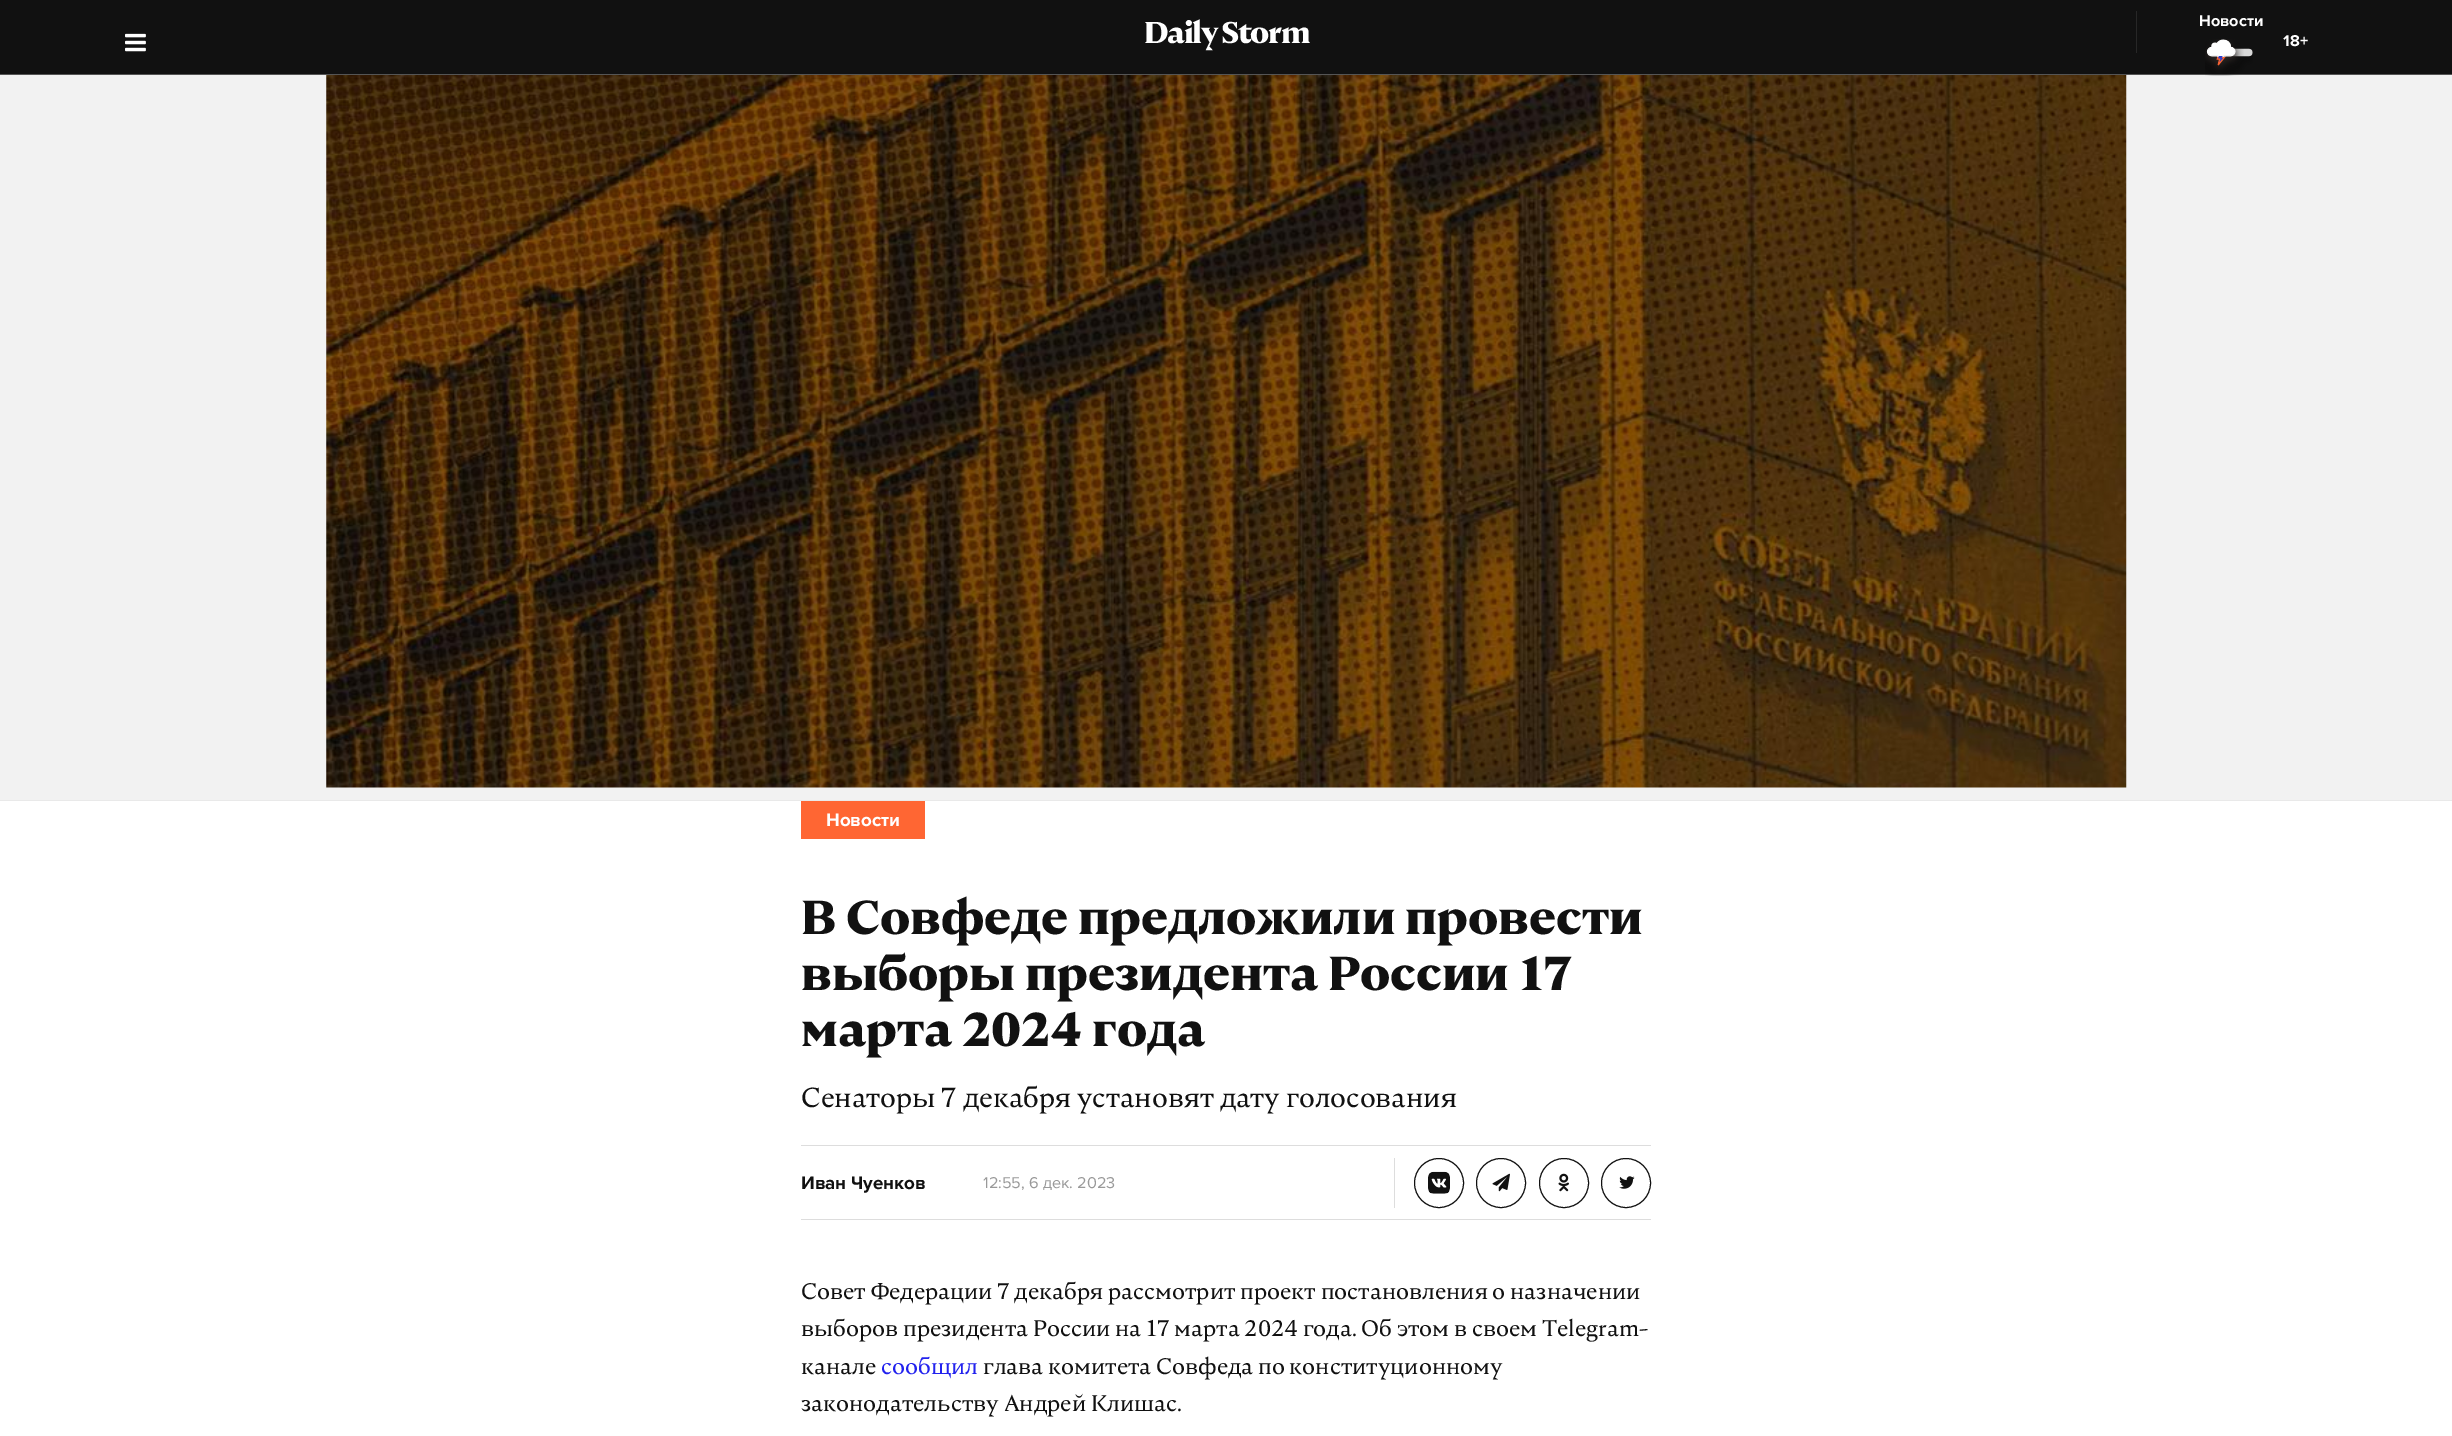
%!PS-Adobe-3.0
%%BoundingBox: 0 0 2452 1436
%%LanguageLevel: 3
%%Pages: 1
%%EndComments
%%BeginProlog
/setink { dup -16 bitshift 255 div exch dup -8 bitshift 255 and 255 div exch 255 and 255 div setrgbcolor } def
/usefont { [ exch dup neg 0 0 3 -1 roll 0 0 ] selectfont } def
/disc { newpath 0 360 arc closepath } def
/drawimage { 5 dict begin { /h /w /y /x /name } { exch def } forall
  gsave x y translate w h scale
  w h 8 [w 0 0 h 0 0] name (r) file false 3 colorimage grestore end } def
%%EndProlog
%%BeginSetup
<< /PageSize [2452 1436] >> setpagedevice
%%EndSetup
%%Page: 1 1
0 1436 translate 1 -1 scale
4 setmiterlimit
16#F2F2F2 setink
0 0 2452 1436 rectfill
16#111111 setink
0 0 2452 74 rectfill
16#555555 setink
0 74 2452 1 rectfill
(img1.raw) 125 33 21 19 drawimage
/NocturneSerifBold-Regular 30 usefont
16#FFFFFF setink
1144 43 moveto -1.4 0 (Daily Storm) ashow
16#272727 setink
2136 11 1 42 rectfill
/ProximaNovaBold-Regular 16.25 usefont
16#FFFFFF setink
2199 26 moveto (Новости) show
(img2.raw) 2205 39 48 37 drawimage
2283 46 moveto (18+) show
(img3.raw) 326 75 1801 713 drawimage
[
    [0 801 2452 635 16#FFFFFF]
    [0 800 2452 1 16#E9E9E9]
    [801 801 124 38 16#FF6633]
] { aload pop setink rectfill } forall
/ProximaNovaBold-Regular 18.75 usefont
16#FFFFFF setink
826 826 moveto (Новости) show
/NocturneSerifBold-Regular 47.5 usefont
16#111111 setink
[
    [(В Совфеде предложили провести) 801 934]
    [(выборы президента России 17) 801 990]
    [(марта 2024 года) 801 1046]
] { aload pop moveto show } forall
/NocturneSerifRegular-Regular 27.5 usefont
801 1107 moveto (Сенаторы 7 декабря установят дату голосования) show
16#DDDDDD setink
801 1145 850 1 rectfill
801 1219 850 1 rectfill
/ProximaNovaBold-Regular 18.75 usefont
16#111111 setink
801 1189 moveto (Иван Чуенков) show
/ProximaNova-Regular 16.25 usefont
16#999999 setink
983 1188 moveto (12:55, 6 дек. 2023) show
16#DDDDDD setink
1394 1158 1 50 rectfill
16#111111 setink
1439 1183 24.5 disc stroke
(img4.raw) 1428 1171 22 23 drawimage
1501 1183 24.5 disc stroke
(img5.raw) 1492 1173 18 19 drawimage
1564 1183 24.5 disc stroke
(img6.raw) 1558 1173 11 19 drawimage
1626 1183 24.5 disc stroke
(img7.raw) 1619 1176 16 13 drawimage
/NocturneSerifRegular-Regular 22.5 usefont
[
    [(Совет Федерации 7 декабря рассмотрит проект постановления о назначении) 801 1299]
    [(выборов президента России на 17 марта 2024 года. Об этом в своем Telegram-) 801 1336]
    [(канале) 801 1374]
] { aload pop moveto show } forall
16#2222EE setink
881 1374 moveto (сообщил) show
16#111111 setink
983 1374 moveto (глава комитета Совфеда по конституционному) show
801 1411 moveto (законодательству Андрей Клишас.) show
showpage
%%EOF
